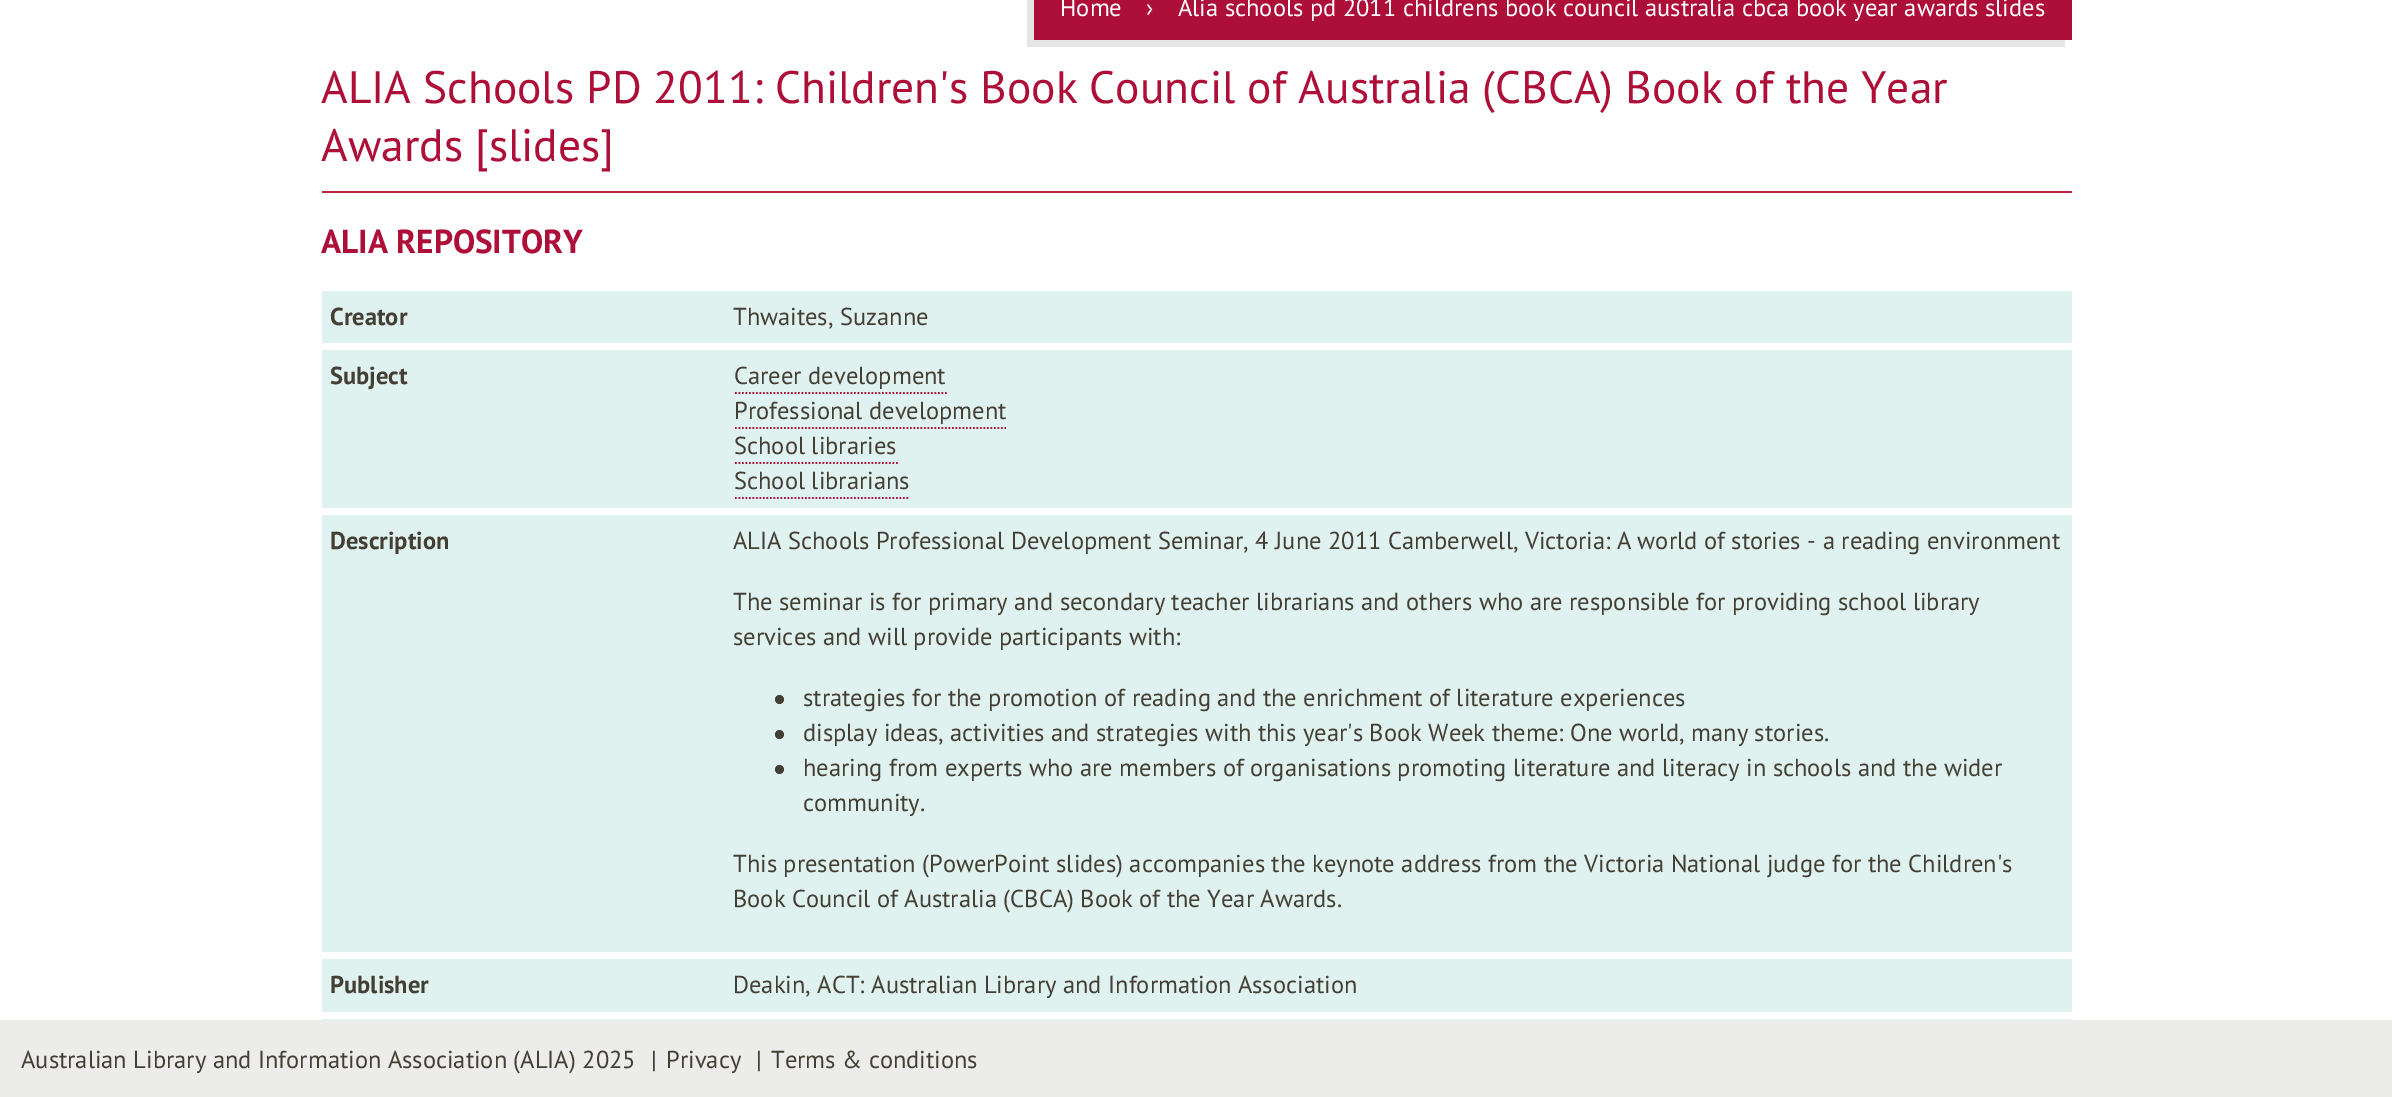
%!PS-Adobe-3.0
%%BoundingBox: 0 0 2392 1097
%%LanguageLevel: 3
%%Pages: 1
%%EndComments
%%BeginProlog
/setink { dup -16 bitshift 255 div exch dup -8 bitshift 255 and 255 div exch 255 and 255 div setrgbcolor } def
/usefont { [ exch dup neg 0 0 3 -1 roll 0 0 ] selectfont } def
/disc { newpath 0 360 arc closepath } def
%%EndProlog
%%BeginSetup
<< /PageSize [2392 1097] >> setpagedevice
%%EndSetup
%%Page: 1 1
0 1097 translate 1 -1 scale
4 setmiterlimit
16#FFFFFF setink
0 0 2392 1097 rectfill
16#E6E6E6 setink
1027 -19 moveto 1027 47 lineto 2065 47 lineto 2065 40 lineto 1034 40 lineto 1034 -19 lineto closepath fill
16#AE0F38 setink
1034 0 1038 40 rectfill
/PTSans-Regular 24.5 usefont
16#FFFFFF setink
[
    [(Home) 1060 16]
    [(›) 1146 16]
    [(Alia schools pd 2011 childrens book council australia cbca book year awards slides) 1178 16]
] { aload pop moveto show } forall
16#C32441 setink
322 191 1750 2 rectfill
/PTSans-Regular 45.5 usefont
16#AE0F38 setink
321 103 moveto (ALIA Schools PD 2011: Children's Book Council of Australia \(CBCA\) Book of the Year) show
321 161 moveto (Awards [slides]) show
/PTSans-Bold 33.25 usefont
321 253 moveto (ALIA REPOSITORY) show
16#E0F2F0 setink
322 291 1750 52 rectfill
/PTSans-Bold 24.5 usefont
16#443F35 setink
330 325 moveto (Creator) show
/PTSans-Regular 24.5 usefont
733 325 moveto (Thwaites, Suzanne) show
16#E0F2F0 setink
322 350 1750 158 rectfill
/PTSans-Bold 24.5 usefont
16#443F35 setink
330 384 moveto (Subject) show
/PTSans-Regular 24.5 usefont
734 384 moveto (Career development) show
16#AE0F38 setink
1.8 setlinewidth
[1.75 1.75] 0 setdash
735 393 moveto 947 393 lineto stroke
16#443F35 setink
734 419 moveto (Professional development) show
16#AE0F38 setink
735 428 moveto 1006 428 lineto stroke
16#443F35 setink
734 454 moveto (School libraries) show
16#AE0F38 setink
735 463 moveto 898 463 lineto stroke
16#443F35 setink
734 489 moveto (School librarians) show
16#AE0F38 setink
735 498 moveto 910 498 lineto stroke
16#E0F2F0 setink
322 515 1750 437 rectfill
/PTSans-Bold 24.5 usefont
16#443F35 setink
330 549 moveto (Description) show
/PTSans-Regular 24.5 usefont
[
    [(ALIA Schools Professional Development Seminar, 4 June 2011 Camberwell, Victoria: A world of stories - a reading environment) 733 549]
    [(The seminar is for primary and secondary teacher librarians and others who are responsible for providing school library) 733 610]
    [(services and will provide participants with:) 733 645]
] { aload pop moveto show } forall
779.5 699.5 4.5 disc fill
803 706 moveto (strategies for the promotion of reading and the enrichment of literature experiences) show
779.5 734.5 4.5 disc fill
803 741 moveto (display ideas, activities and strategies with this year's Book Week theme: One world, many stories.) show
779.5 769.5 4.5 disc fill
[
    [(hearing from experts who are members of organisations promoting literature and literacy in schools and the wider) 803 776]
    [(community.) 803 811]
    [(This presentation \(PowerPoint slides\) accompanies the keynote address from the Victoria National judge for the Children's) 733 872]
    [(Book Council of Australia \(CBCA\) Book of the Year Awards.) 733 907]
] { aload pop moveto show } forall
16#E0F2F0 setink
322 959 1750 53 rectfill
/PTSans-Bold 24.5 usefont
16#443F35 setink
330 993 moveto (Publisher) show
/PTSans-Regular 24.5 usefont
733 993 moveto (Deakin, ACT: Australian Library and Information Association) show
16#E0F2F0 setink
322 1019 1750 1 rectfill
16#ECECEB setink
0 1020 2392 77 rectfill
16#443F35 setink
[
    [(Australian Library and Information Association \(ALIA\) 2025) 21 1068]
    [(|) 651 1068]
    [(Privacy) 666 1068]
    [(|) 756 1068]
    [(Terms & conditions) 771 1068]
] { aload pop moveto show } forall
showpage
%%EOF
